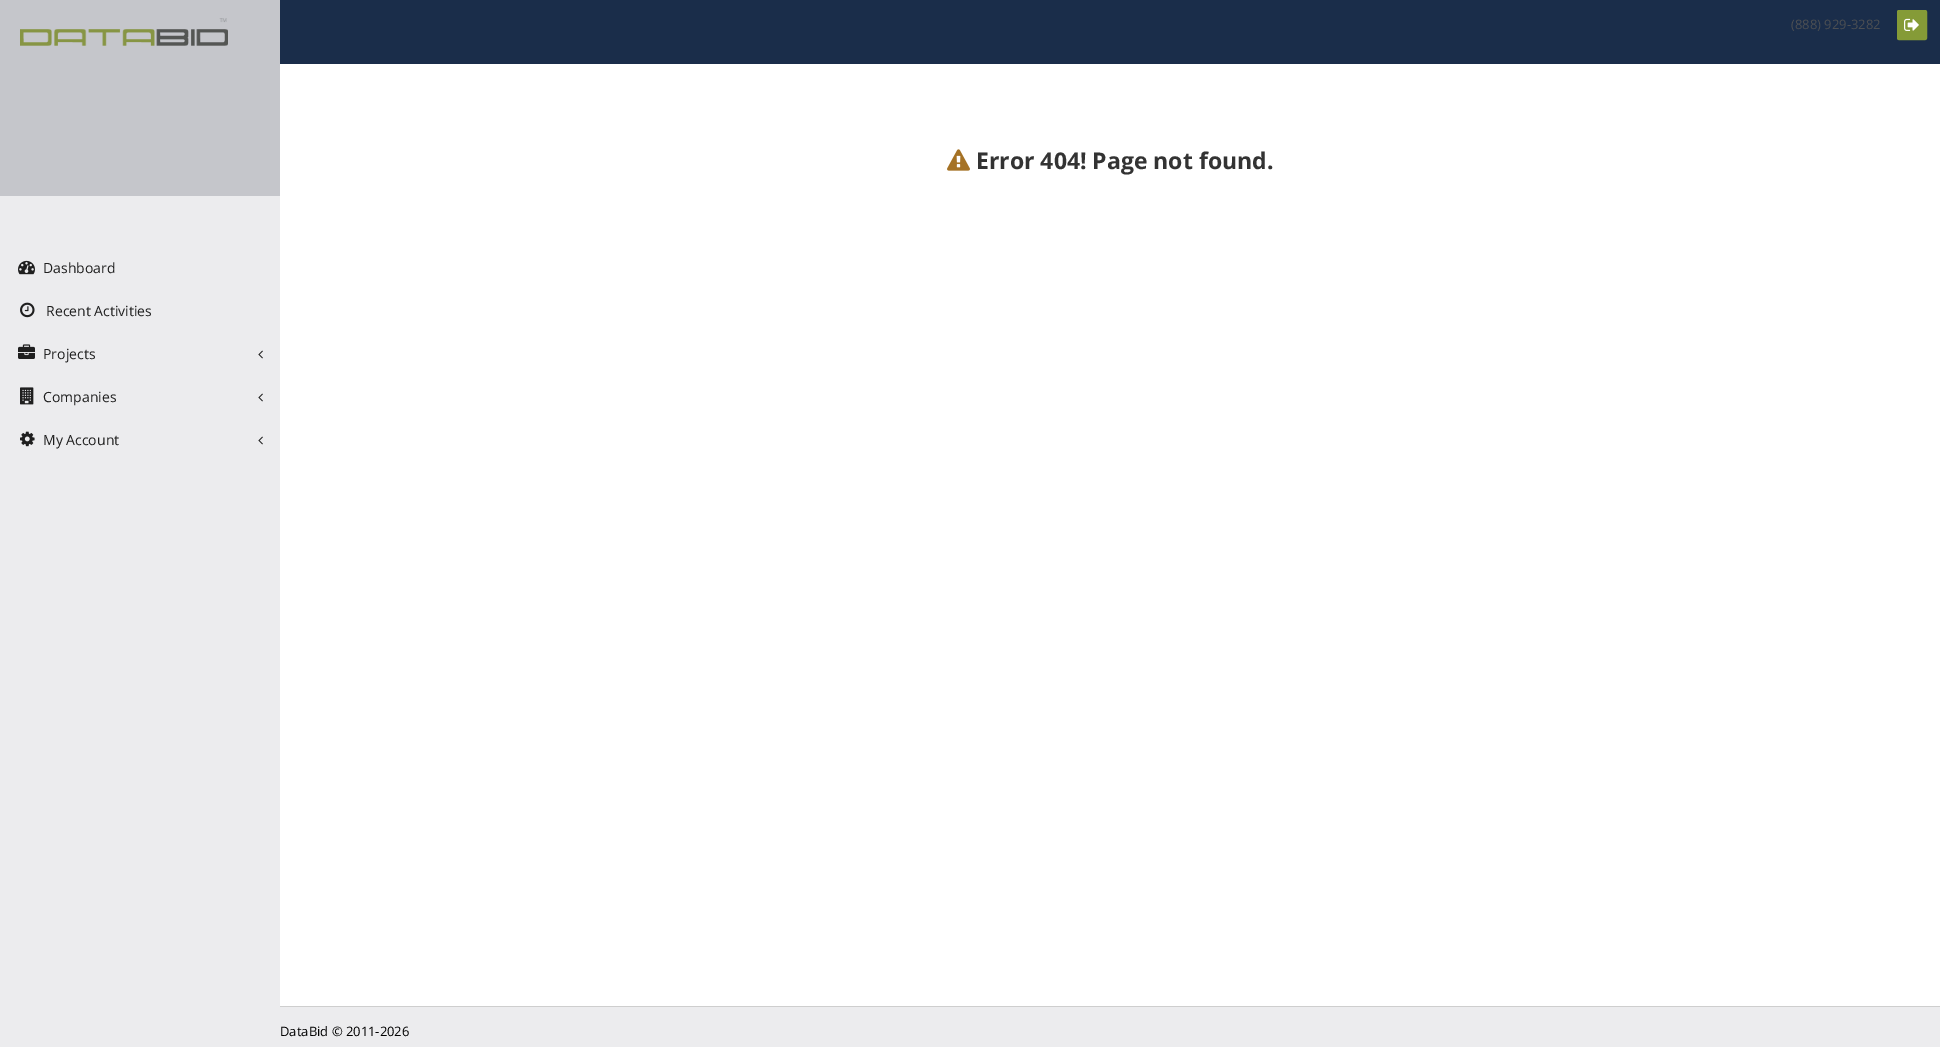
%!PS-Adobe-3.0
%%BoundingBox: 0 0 1940 1047
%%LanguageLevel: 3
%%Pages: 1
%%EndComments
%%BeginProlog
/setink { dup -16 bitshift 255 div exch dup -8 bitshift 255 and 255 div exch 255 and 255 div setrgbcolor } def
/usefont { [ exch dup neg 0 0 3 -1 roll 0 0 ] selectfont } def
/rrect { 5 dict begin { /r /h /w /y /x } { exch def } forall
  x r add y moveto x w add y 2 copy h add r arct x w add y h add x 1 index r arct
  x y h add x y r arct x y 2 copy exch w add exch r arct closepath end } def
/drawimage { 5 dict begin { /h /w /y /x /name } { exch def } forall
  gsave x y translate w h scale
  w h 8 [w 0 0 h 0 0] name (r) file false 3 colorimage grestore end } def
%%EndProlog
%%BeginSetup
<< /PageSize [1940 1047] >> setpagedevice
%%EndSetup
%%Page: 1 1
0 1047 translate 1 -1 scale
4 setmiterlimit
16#FFFFFF setink
0 0 1940 1047 rectfill
16#1A2D4A setink
280 0 1660 64 rectfill
16#C5C6CB setink
0 0 280 196 rectfill
(img1.raw) 20 18 208 28 drawimage
/OpenSans-Regular 13 usefont
16#4C4F53 setink
1791 29 moveto (\(888\) 929-3282) show
16#859B37 setink
1897.5 10.5 29 29 1.5 rrect gsave fill grestore
stroke
(img2.raw) 1904 18 15 13 drawimage
(img3.raw) 947 149 23 22 drawimage
/OpenSans-Bold 23 usefont
16#333333 setink
976 169 moveto (Error 404! Page not found.) show
16#ECECEE setink
0 196 280 851 rectfill
(img4.raw) 18 260 17 15 drawimage
/OpenSans-Regular 14 usefont
16#1F1F1F setink
43 273 moveto (Dashboard) show
(img5.raw) 20 302 15 16 drawimage
46 316 moveto (Recent Activities) show
(img6.raw) 18 344 17 15 drawimage
43 359 moveto (Projects) show
(img7.raw) 258 350 5 9 drawimage
(img8.raw) 20 387 14 18 drawimage
43 402 moveto (Companies) show
(img7.raw) 258 393 5 9 drawimage
(img9.raw) 20 431 15 16 drawimage
43 445 moveto (My Account) show
(img7.raw) 258 436 5 9 drawimage
16#ECECEE setink
280 1007 1660 40 rectfill
16#CECECE setink
280 1006 1660 1 rectfill
/OpenSans-Regular 13 usefont
16#000000 setink
280 1036 moveto (DataBid © 2011-2026) show
showpage
%%EOF
